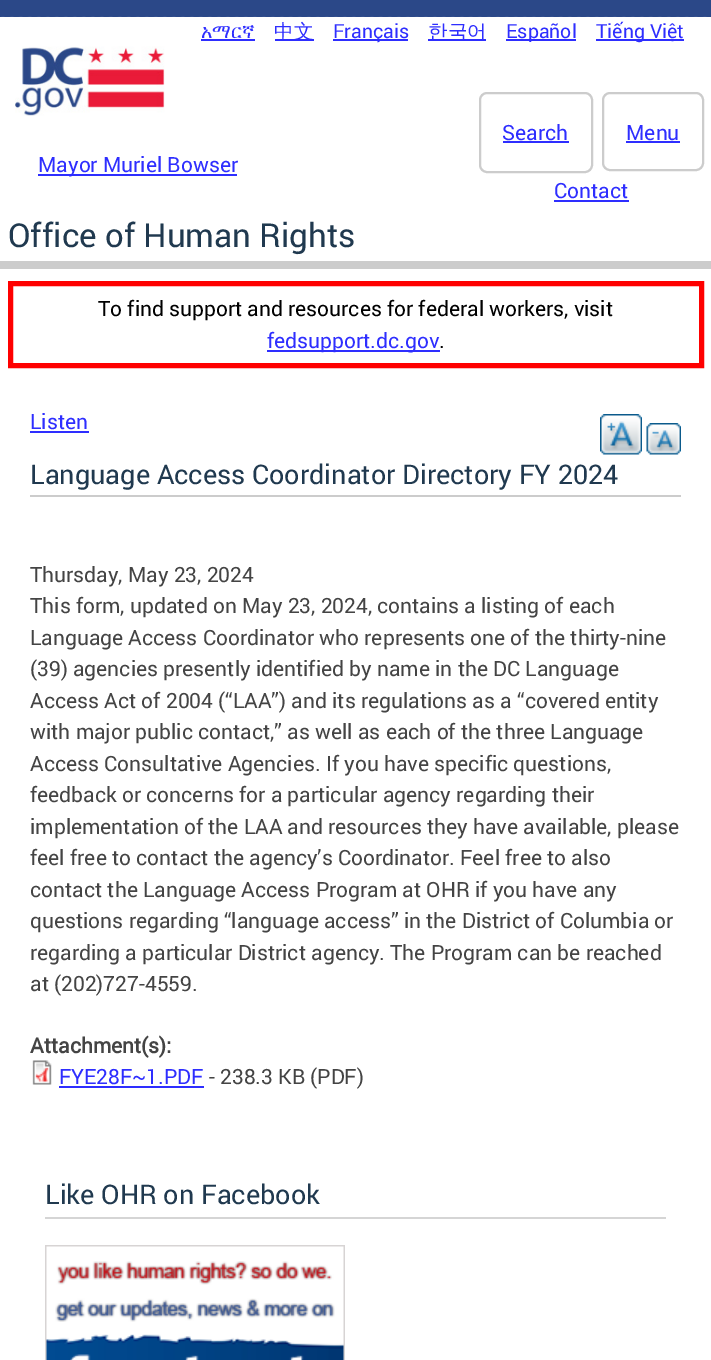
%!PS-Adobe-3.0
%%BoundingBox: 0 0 711 1360
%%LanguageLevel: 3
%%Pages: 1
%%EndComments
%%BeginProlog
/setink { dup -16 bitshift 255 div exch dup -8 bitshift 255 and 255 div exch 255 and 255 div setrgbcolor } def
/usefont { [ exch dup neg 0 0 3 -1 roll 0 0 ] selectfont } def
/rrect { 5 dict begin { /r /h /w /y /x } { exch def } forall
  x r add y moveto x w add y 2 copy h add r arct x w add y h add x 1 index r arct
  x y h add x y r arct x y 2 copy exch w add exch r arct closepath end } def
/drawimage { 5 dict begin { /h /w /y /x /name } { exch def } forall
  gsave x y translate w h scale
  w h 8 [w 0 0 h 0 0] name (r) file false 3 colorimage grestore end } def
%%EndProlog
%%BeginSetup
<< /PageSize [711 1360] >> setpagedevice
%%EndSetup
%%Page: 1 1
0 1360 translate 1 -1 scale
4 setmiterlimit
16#FFFFFF setink
0 0 711 1360 rectfill
16#2B4888 setink
0 0 711 17 rectfill
(img1.raw) 1 16 706 1 drawimage
/FreeSerif-Regular 19.5 usefont
16#2E2EFF setink
201 38 moveto (አማርኛ) show
201 39 54 2 rectfill
275 39 39 2 rectfill
/WenQuanYiZenHei-Medium 19.5 usefont
274 38 moveto (中文) show
333 39 75 2 rectfill
/Roboto-Regular 19.5 usefont
333 38 moveto (Français) show
428 39 58 2 rectfill
/WenQuanYiZenHei-Medium 19.5 usefont
428 38 moveto (한국어) show
506 39 70 2 rectfill
/Roboto-Regular 19.5 usefont
506 38 moveto (Español) show
596 39 88 2 rectfill
596 38 moveto (Tiếng Việt) show
16#CCCCCC setink
2 setlinewidth
480 93 112 79 7 rrect stroke
/Roboto-Regular 21 usefont
16#2E2EFF setink
502 140 moveto (Search) show
503 141 66 2 rectfill
16#CCCCCC setink
603 93 100 77 7 rrect stroke
16#2E2EFF setink
626 140 moveto (Menu) show
626 141 54 2 rectfill
(img2.raw) 15 46 150 70 drawimage
38 174 199 2 rectfill
38 172 moveto (Mayor Muriel Bowser) show
554 198 moveto (Contact) show
554 200 75 2 rectfill
16#CCCCCC setink
0 261 711 8 rectfill
/Roboto-Regular 33 usefont
16#20394F setink
8 247 moveto (Office of Human Rights) show
16#FF0000 setink
5 setlinewidth
10.5 283.5 691 82 rectstroke
/Roboto-Regular 21 usefont
16#000000 setink
98 316 moveto (To find support and resources for federal workers, visit) show
16#2E2EFF setink
267 350 173 2 rectfill
267 348 moveto (fedsupport.dc.gov) show
16#000000 setink
439 348 moveto (.) show
16#2E2EFF setink
30 429 moveto (Listen) show
30 431 59 2 rectfill
(img3.raw) 600 414 42 41 drawimage
(img4.raw) 646 423 35 32 drawimage
16#CCCCCC setink
30 495 651 2 rectfill
/Roboto-Regular 27 usefont
16#20394F setink
30 484 moveto (Language Access Coordinator Directory FY 2024) show
/Roboto-Regular 21 usefont
16#444444 setink
[
    [(Thursday, May 23, 2024) 30 582]
    [(This form, updated on May 23, 2024, contains a listing of each) 30 613]
    [(Language Access Coordinator who represents one of the thirty-nine) 30 645]
    [(\(39\) agencies presently identified by name in the DC Language) 30 676]
    [(Access Act of 2004 \(“LAA”\) and its regulations as a “covered entity) 30 708]
    [(with major public contact,” as well as each of the three Language) 30 739]
    [(Access Consultative Agencies. If you have specific questions,) 30 771]
    [(feedback or concerns for a particular agency regarding their) 30 802]
    [(implementation of the LAA and resources they have available, please) 30 834]
    [(feel free to contact the agency’s Coordinator. Feel free to also) 30 865]
    [(contact the Language Access Program at OHR if you have any) 30 897]
    [(questions regarding “language access” in the District of Columbia or) 30 928]
    [(regarding a particular District agency. The Program can be reached) 30 960]
    [(at \(202\)727-4559.) 30 991]
] { aload pop moveto show } forall
/Roboto-Bold 21 usefont
30 1053 moveto (Attachment\(s\):) show
(img5.raw) 32 1060 20 25 drawimage
/Roboto-Regular 21 usefont
16#2E2EFF setink
59 1084 moveto (FYE28F~1.PDF) show
59 1086 145 2 rectfill
16#444444 setink
209 1084 moveto (- 238.3 KB \(PDF\)) show
16#D5D5D5 setink
45 1217 621 2 rectfill
/Roboto-Regular 27 usefont
16#20394F setink
45 1204 moveto (Like OHR on Facebook) show
(img6.raw) 45 1245 300 115 drawimage
showpage
%%EOF
